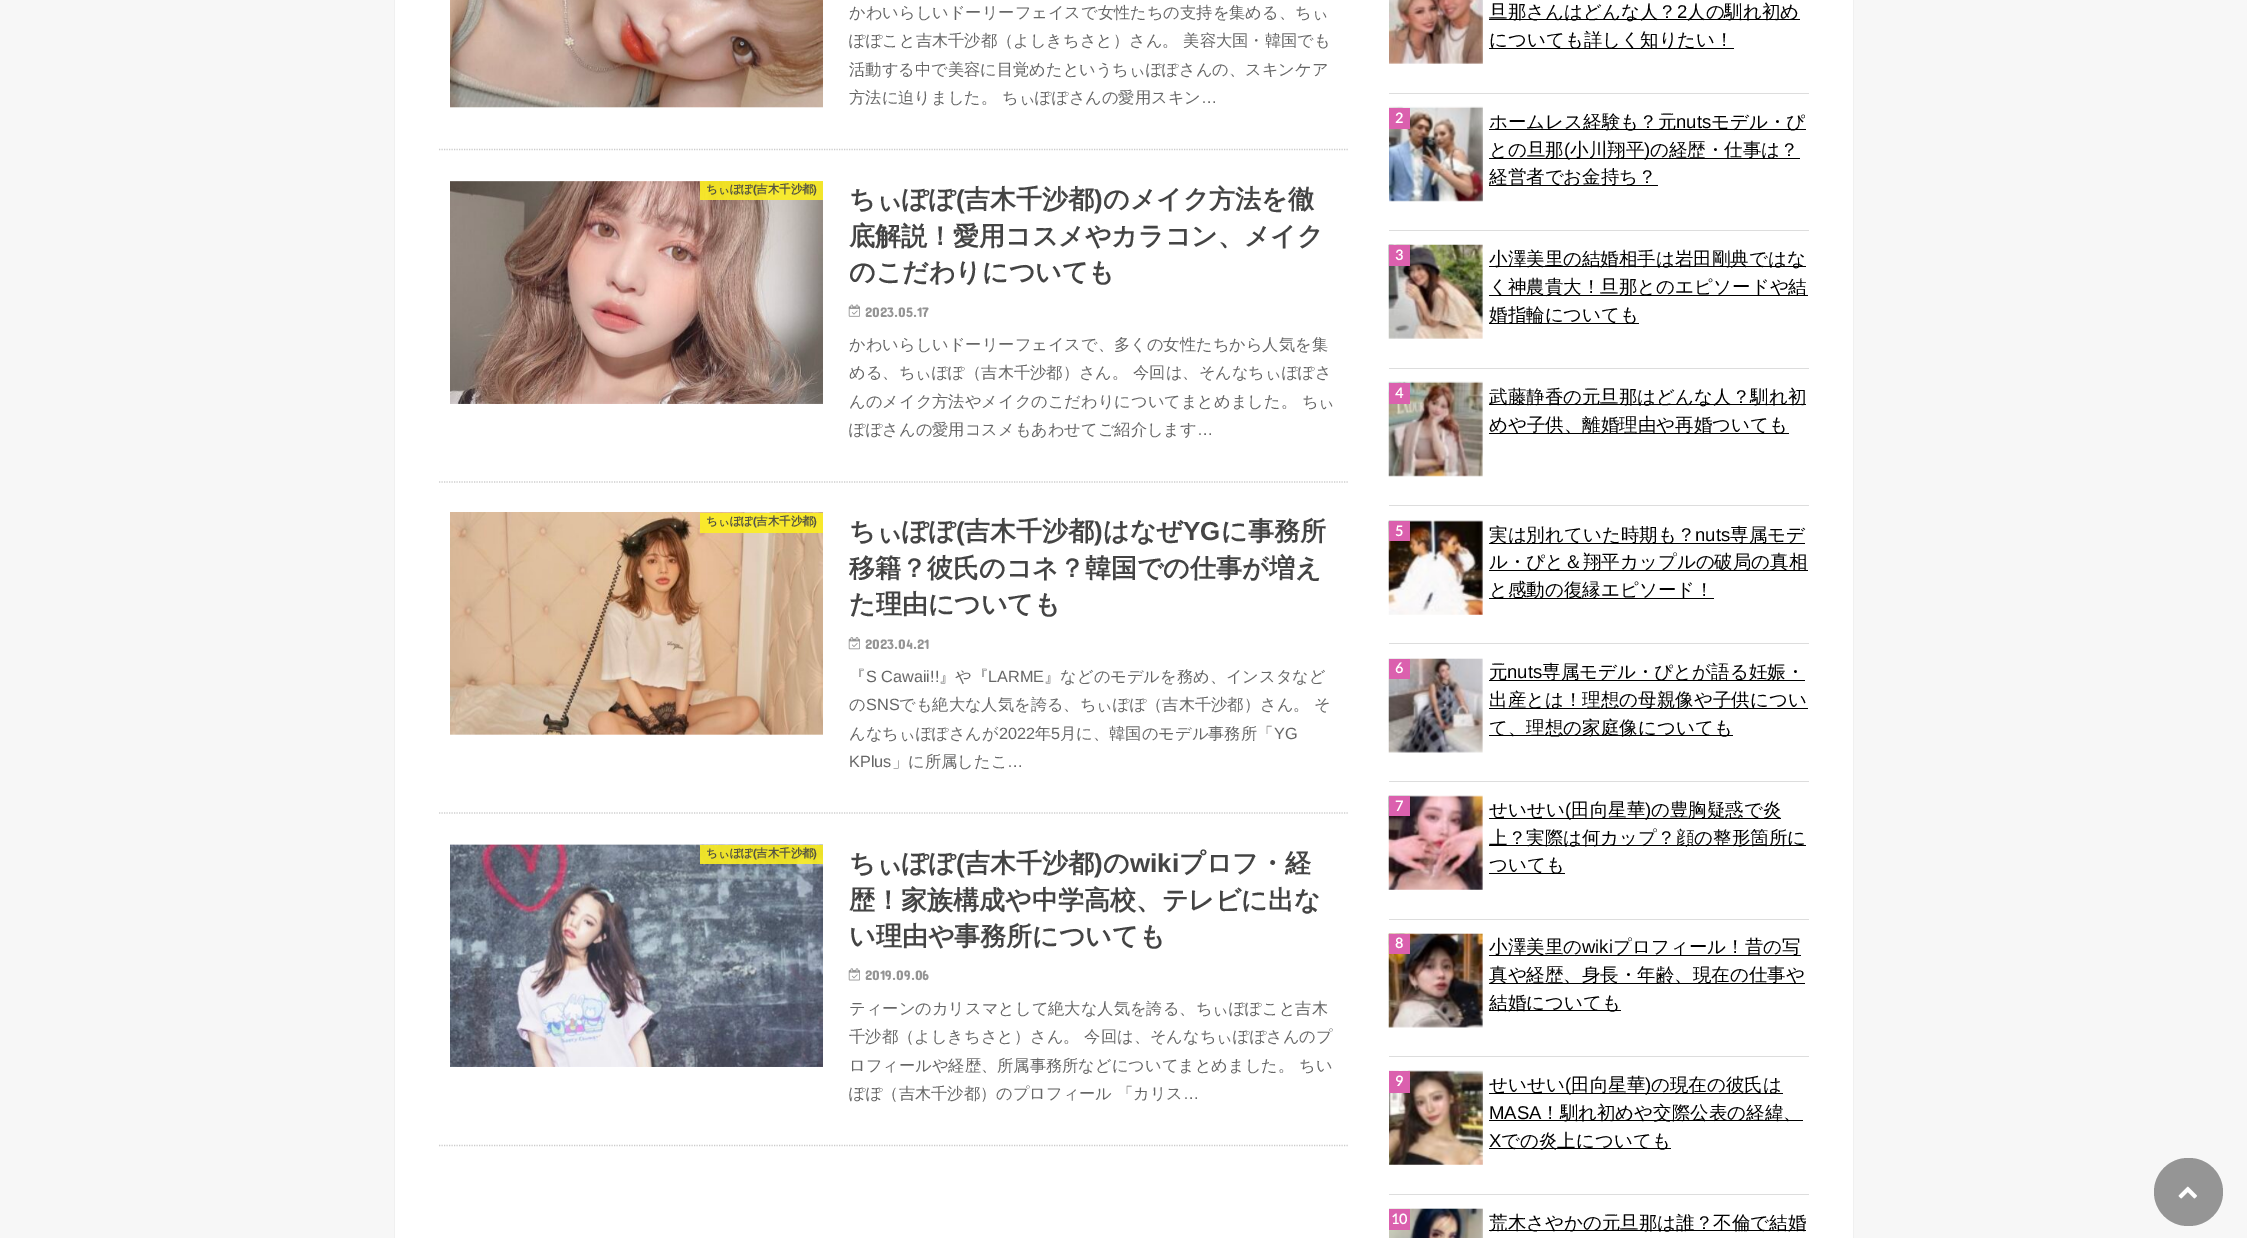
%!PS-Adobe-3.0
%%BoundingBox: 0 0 2247 1238
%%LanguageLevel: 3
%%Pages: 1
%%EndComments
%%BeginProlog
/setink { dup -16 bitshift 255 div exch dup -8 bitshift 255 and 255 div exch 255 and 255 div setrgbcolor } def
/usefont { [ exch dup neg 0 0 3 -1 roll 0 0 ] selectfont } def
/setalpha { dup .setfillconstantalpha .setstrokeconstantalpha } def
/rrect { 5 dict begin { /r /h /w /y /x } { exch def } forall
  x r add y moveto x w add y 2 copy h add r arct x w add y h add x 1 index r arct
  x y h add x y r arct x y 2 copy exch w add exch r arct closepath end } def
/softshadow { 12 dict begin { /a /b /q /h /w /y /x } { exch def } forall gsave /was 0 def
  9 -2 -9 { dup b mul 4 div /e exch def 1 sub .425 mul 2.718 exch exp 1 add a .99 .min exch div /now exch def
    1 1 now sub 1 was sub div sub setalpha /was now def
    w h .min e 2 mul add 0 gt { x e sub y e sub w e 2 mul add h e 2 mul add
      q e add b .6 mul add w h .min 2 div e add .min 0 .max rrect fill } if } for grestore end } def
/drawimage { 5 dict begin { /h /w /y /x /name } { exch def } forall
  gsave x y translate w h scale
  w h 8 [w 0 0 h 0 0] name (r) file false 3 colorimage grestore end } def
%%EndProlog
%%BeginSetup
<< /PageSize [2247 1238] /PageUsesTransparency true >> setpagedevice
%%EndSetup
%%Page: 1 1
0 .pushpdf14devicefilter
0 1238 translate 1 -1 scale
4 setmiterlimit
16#F7F7F7 setink
0 0 2247 1238 rectfill
16#DDDDDD setink
395 -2 1458 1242 0 0.5 1 softshadow
16#FFFFFF setink
395 0 1458 1238 rectfill
16#CCCCCC setink
1.2 setlinewidth
[1.25 1.25] 0 setdash
439 149.5 moveto 1349 149.5 lineto stroke
(img1.raw) 450 0 373 108 drawimage
/WenQuanYiZenHei-Medium 16.25 usefont
16#666666 setink
[
    [(かわいらしいドーリーフェイスで女性たちの支持を集める、ちぃ) 849 18]
    [(ぽぽこと吉木千沙都（よしきちさと）さん。 美容大国・韓国でも) 849 46]
    [(活動する中で美容に目覚めたというちぃぽぽさんの、スキンケア) 849 75]
    [(方法に迫りました。 ちぃぽぽさんの愛用スキン) 849 103]
] { aload pop moveto show } forall
/LiberationSans-Regular 16.25 usefont
1201 103 moveto (…) show
16#CCCCCC setink
439 482 moveto 1349 482 lineto stroke
(img2.raw) 450 181 373 223 drawimage
0.9 setalpha
16#FCEE21 setink
700 181 123 19 rectfill
/WenQuanYiZenHei-Bold 11.5 usefont
1 setalpha
16#555441 setink
706 193 moveto (ちぃぽぽ) show
/LiberationSans-Bold 11.5 usefont
753 193 moveto (\() show
/WenQuanYiZenHei-Bold 11.5 usefont
756 193 moveto (吉木千沙都) show
/LiberationSans-Bold 11.5 usefont
813 193 moveto (\)) show
/WenQuanYiZenHei-Bold 26 usefont
16#444444 setink
849 208 moveto (ちぃぽぽ) show
/LiberationSans-Bold 26 usefont
956 208 moveto (\() show
/WenQuanYiZenHei-Bold 26 usefont
964 208 moveto (吉木千沙都) show
/LiberationSans-Bold 26 usefont
1094 208 moveto (\)) show
/WenQuanYiZenHei-Bold 26 usefont
[
    [(のメイク方法を徹) 1103 208]
    [(底解説！愛用コスメやカラコン、メイク) 849 245]
    [(のこだわりについても) 849 281]
] { aload pop moveto show } forall
(img3.raw) 848 304 12 13 drawimage
/ConcertOne-Regular 14 usefont
16#949494 setink
865 317 moveto (2023.05.17) show
/WenQuanYiZenHei-Medium 16.25 usefont
16#666666 setink
[
    [(かわいらしいドーリーフェイスで、多くの女性たちから人気を集) 849 350]
    [(める、ちぃぽぽ（吉木千沙都）さん。 今回は、そんなちぃぽぽさ) 849 378]
    [(んのメイク方法やメイクのこだわりについてまとめました。 ちぃ) 849 407]
    [(ぽぽさんの愛用コスメもあわせてご紹介します) 849 435]
] { aload pop moveto show } forall
/LiberationSans-Regular 16.25 usefont
1197 435 moveto (…) show
16#CCCCCC setink
439 813 moveto 1349 813 lineto stroke
(img4.raw) 450 512 373 223 drawimage
0.9 setalpha
16#FCEE21 setink
700 513 123 20 rectfill
/WenQuanYiZenHei-Bold 11.5 usefont
1 setalpha
16#555441 setink
706 525 moveto (ちぃぽぽ) show
/LiberationSans-Bold 11.5 usefont
16#535250 setink
753 525 moveto (\() show
/WenQuanYiZenHei-Bold 11.5 usefont
16#555441 setink
756 525 moveto (吉木千沙都) show
/LiberationSans-Bold 11.5 usefont
813 525 moveto (\)) show
/WenQuanYiZenHei-Bold 26 usefont
16#444444 setink
849 540 moveto (ちぃぽぽ) show
/LiberationSans-Bold 26 usefont
956 540 moveto (\() show
/WenQuanYiZenHei-Bold 26 usefont
964 540 moveto (吉木千沙都) show
/LiberationSans-Bold 26 usefont
1094 540 moveto (\)) show
/WenQuanYiZenHei-Bold 26 usefont
1103 540 moveto (はなぜ) show
/LiberationSans-Bold 26 usefont
1183 540 moveto (YG) show
/WenQuanYiZenHei-Bold 26 usefont
[
    [(に事務所) 1221 540]
    [(移籍？彼氏のコネ？韓国での仕事が増え) 849 577]
    [(た理由についても) 849 613]
] { aload pop moveto show } forall
(img5.raw) 848 637 12 13 drawimage
/ConcertOne-Regular 14 usefont
16#949494 setink
865 649 moveto (2023.04.21) show
/WenQuanYiZenHei-Medium 16.25 usefont
16#666666 setink
849 682 moveto (『) show
/LiberationSans-Regular 16.25 usefont
866 682 moveto (S Cawaii!!) show
/WenQuanYiZenHei-Medium 16.25 usefont
939 682 moveto (』や『) show
/LiberationSans-Regular 16.25 usefont
988 682 moveto (LARME) show
/WenQuanYiZenHei-Medium 16.25 usefont
1044 682 moveto (』などのモデルを務め、インスタなど) show
849 710 moveto (の) show
/LiberationSans-Regular 16.25 usefont
866 710 moveto (SNS) show
/WenQuanYiZenHei-Medium 16.25 usefont
899 710 moveto (でも絶大な人気を誇る、ちぃぽぽ（吉木千沙都）さん。 そ) show
849 739 moveto (んなちぃぽぽさんが) show
/LiberationSans-Regular 16.25 usefont
999 739 moveto (2022) show
/WenQuanYiZenHei-Medium 16.25 usefont
1035 739 moveto (年) show
/LiberationSans-Regular 16.25 usefont
1051 739 moveto (5) show
/WenQuanYiZenHei-Medium 16.25 usefont
1060 739 moveto (月に、韓国のモデル事務所「) show
/LiberationSans-Regular 16.25 usefont
1274 739 moveto (YG) show
849 767 moveto (KPlus) show
/WenQuanYiZenHei-Medium 16.25 usefont
892 767 moveto (」に所属したこ) show
/LiberationSans-Regular 16.25 usefont
1007 767 moveto (…) show
16#CCCCCC setink
439 1145.5 moveto 1349 1145.5 lineto stroke
(img6.raw) 450 844 373 223 drawimage
0.9 setalpha
16#FCEE21 setink
700 845 123 19 rectfill
/WenQuanYiZenHei-Bold 11.5 usefont
1 setalpha
16#555441 setink
706 857 moveto (ちぃぽぽ) show
/LiberationSans-Bold 11.5 usefont
753 857 moveto (\() show
/WenQuanYiZenHei-Bold 11.5 usefont
756 857 moveto (吉木千沙都) show
/LiberationSans-Bold 11.5 usefont
813 857 moveto (\)) show
/WenQuanYiZenHei-Bold 26 usefont
16#444444 setink
849 872 moveto (ちぃぽぽ) show
/LiberationSans-Bold 26 usefont
956 872 moveto (\() show
/WenQuanYiZenHei-Bold 26 usefont
964 872 moveto (吉木千沙都) show
/LiberationSans-Bold 26 usefont
1094 872 moveto (\)) show
/WenQuanYiZenHei-Bold 26 usefont
1103 872 moveto (の) show
/LiberationSans-Bold 26 usefont
1130 872 moveto (wiki) show
/WenQuanYiZenHei-Bold 26 usefont
[
    [(プロフ・経) 1179 872]
    [(歴！家族構成や中学高校、テレビに出な) 849 909]
    [(い理由や事務所についても) 849 945]
] { aload pop moveto show } forall
(img7.raw) 848 968 12 13 drawimage
/ConcertOne-Regular 14 usefont
16#949494 setink
865 980 moveto (2019.09.06) show
/WenQuanYiZenHei-Medium 16.25 usefont
16#666666 setink
[
    [(ティーンのカリスマとして絶大な人気を誇る、ちぃぽぽこと吉木) 849 1014]
    [(千沙都（よしきちさと）さん。 今回は、そんなちぃぽぽさんのプ) 849 1042]
    [(ロフィールや経歴、所属事務所などについてまとめました。 ちい) 849 1071]
    [(ぽぽ（吉木千沙都）のプロフィール 「カリス) 849 1099]
] { aload pop moveto show } forall
/LiberationSans-Regular 16.25 usefont
1183 1099 moveto (…) show
16#DDDDDD setink
1389 93 420 1 rectfill
(img8.raw) 1389 0 94 64 drawimage
16#000000 setink
1489 19 311 1 rectfill
/WenQuanYiZenHei-Medium 18.5 usefont
1489 18 moveto (旦那さんはどんな人？) show
/LiberationSans-Regular 18.5 usefont
1677 18 moveto (2) show
/WenQuanYiZenHei-Medium 18.5 usefont
1687 18 moveto (人の馴れ初め) show
1489 48 245 1 rectfill
1489 46 moveto (についても詳しく知りたい！) show
16#DDDDDD setink
1389 230 420 1 rectfill
(img9.raw) 1389 106 94 96 drawimage
16#DB60AE setink
1389 108 21 21 rectfill
/Lato-Bold 14 usefont
16#FFFFFF setink
1395 123 moveto (2) show
16#000000 setink
1489 129 317 1 rectfill
/WenQuanYiZenHei-Medium 18.5 usefont
1489 128 moveto (ホームレス経験も？元) show
/LiberationSans-Regular 18.5 usefont
1676 128 moveto (nuts) show
/WenQuanYiZenHei-Medium 18.5 usefont
1711 128 moveto (モデル・ぴ) show
1489 158 311 1 rectfill
1489 156 moveto (との旦那) show
/LiberationSans-Regular 18.5 usefont
1564 156 moveto (\() show
/WenQuanYiZenHei-Medium 18.5 usefont
1570 156 moveto (小川翔平) show
/LiberationSans-Regular 18.5 usefont
1644 156 moveto (\)) show
/WenQuanYiZenHei-Medium 18.5 usefont
1650 156 moveto (の経歴・仕事は？) show
1489 185 169 1 rectfill
1489 183 moveto (経営者でお金持ち？) show
16#DDDDDD setink
1389 368 420 1 rectfill
(img10.raw) 1388 244 95 95 drawimage
16#DB60AE setink
1389 245 21 21 rectfill
/Lato-Bold 14 usefont
16#FFFFFF setink
1395 260 moveto (3) show
16#000000 setink
1489 266 317 1 rectfill
/WenQuanYiZenHei-Medium 18.5 usefont
1489 265 moveto (小澤美里の結婚相手は岩田剛典ではな) show
1489 295 319 1 rectfill
1489 293 moveto (く神農貴大！旦那とのエピソードや結) show
1489 323 150 1 rectfill
1489 321 moveto (婚指輪についても) show
16#DDDDDD setink
1389 505 420 1 rectfill
(img11.raw) 1388 381 95 96 drawimage
16#DB60AE setink
1389 383 21 21 rectfill
/Lato-Bold 14 usefont
16#FFFFFF setink
1395 398 moveto (4) show
16#000000 setink
1489 404 317 1 rectfill
/WenQuanYiZenHei-Medium 18.5 usefont
1489 403 moveto (武藤静香の元旦那はどんな人？馴れ初) show
1489 433 300 1 rectfill
1489 431 moveto (めや子供、離婚理由や再婚ついても) show
16#DDDDDD setink
1389 643 420 1 rectfill
(img12.raw) 1388 520 95 95 drawimage
16#DB60AE setink
1389 521 21 20 rectfill
/Lato-Bold 14 usefont
16#FFFFFF setink
1395 536 moveto (5) show
16#000000 setink
1489 543 316 1 rectfill
/WenQuanYiZenHei-Medium 18.5 usefont
1489 541 moveto (実は別れていた時期も？) show
/LiberationSans-Regular 18.5 usefont
1695 541 moveto (nuts) show
/WenQuanYiZenHei-Medium 18.5 usefont
1730 541 moveto (専属モデ) show
1489 570 319 1 rectfill
1489 568 moveto (ル・ぴと＆翔平カップルの破局の真相) show
1489 598 225 1 rectfill
1489 596 moveto (と感動の復縁エピソード！) show
16#DDDDDD setink
1389 781 420 1 rectfill
(img13.raw) 1388 658 95 95 drawimage
16#DB60AE setink
1389 659 21 20 rectfill
/Lato-Bold 14 usefont
16#FFFFFF setink
1395 673 moveto (6) show
/WenQuanYiZenHei-Medium 18.5 usefont
16#000000 setink
1489 678 moveto (元) show
/LiberationSans-Regular 18.5 usefont
1507 678 moveto (nuts) show
1489 680 316 1 rectfill
/WenQuanYiZenHei-Medium 18.5 usefont
1542 678 moveto (専属モデル・ぴとが語る妊娠・) show
1489 708 319 1 rectfill
1489 706 moveto (出産とは！理想の母親像や子供につい) show
1489 735 244 1 rectfill
1489 734 moveto (て、理想の家庭像についても) show
16#DDDDDD setink
1389 919 420 1 rectfill
(img14.raw) 1388 795 95 95 drawimage
16#DB60AE setink
1389 796 21 20 rectfill
/Lato-Bold 14 usefont
16#FFFFFF setink
1395 811 moveto (7) show
16#000000 setink
1489 818 292 1 rectfill
/WenQuanYiZenHei-Medium 18.5 usefont
1489 816 moveto (せいせい) show
/LiberationSans-Regular 18.5 usefont
1565 816 moveto (\() show
/WenQuanYiZenHei-Medium 18.5 usefont
1571 816 moveto (田向星華) show
/LiberationSans-Regular 18.5 usefont
1645 816 moveto (\)) show
/WenQuanYiZenHei-Medium 18.5 usefont
1651 816 moveto (の豊胸疑惑で炎) show
1489 845 317 1 rectfill
1489 844 moveto (上？実際は何カップ？顔の整形箇所に) show
1489 873 76 1 rectfill
1489 871 moveto (ついても) show
16#DDDDDD setink
1389 1056 420 1 rectfill
(img15.raw) 1388 933 95 95 drawimage
16#DB60AE setink
1389 934 21 20 rectfill
/Lato-Bold 14 usefont
16#FFFFFF setink
1395 948 moveto (8) show
16#000000 setink
1489 955 312 1 rectfill
/WenQuanYiZenHei-Medium 18.5 usefont
1489 953 moveto (小澤美里の) show
/LiberationSans-Regular 18.5 usefont
1582 953 moveto (wiki) show
/WenQuanYiZenHei-Medium 18.5 usefont
1613 953 moveto (プロフィール！昔の写) show
1489 983 316 1 rectfill
1489 981 moveto (真や経歴、身長・年齢、現在の仕事や) show
1489 1010 132 1 rectfill
1489 1009 moveto (結婚についても) show
16#DDDDDD setink
1389 1194 420 1 rectfill
(img16.raw) 1389 1070 94 95 drawimage
16#DB60AE setink
1389 1071 21 22 rectfill
/Lato-Bold 14 usefont
16#FFFFFF setink
1395 1086 moveto (9) show
16#000000 setink
1489 1093 294 1 rectfill
/WenQuanYiZenHei-Medium 18.5 usefont
1489 1091 moveto (せいせい) show
/LiberationSans-Regular 18.5 usefont
1565 1091 moveto (\() show
/WenQuanYiZenHei-Medium 18.5 usefont
1571 1091 moveto (田向星華) show
/LiberationSans-Regular 18.5 usefont
1645 1091 moveto (\)) show
/WenQuanYiZenHei-Medium 18.5 usefont
1651 1091 moveto (の現在の彼氏は) show
/LiberationSans-Regular 18.5 usefont
1489 1119 moveto (MASA) show
1489 1120 314 1 rectfill
/WenQuanYiZenHei-Medium 18.5 usefont
1541 1119 moveto (！馴れ初めや交際公表の経緯、) show
/LiberationSans-Regular 18.5 usefont
1489 1147 moveto (X) show
1489 1148 182 1 rectfill
/WenQuanYiZenHei-Medium 18.5 usefont
1501 1147 moveto (での炎上についても) show
(img17.raw) 1389 1208 94 30 drawimage
16#DB60AE setink
1389 1209 21 21 rectfill
/Lato-Bold 14 usefont
16#FFFFFF setink
1391 1224 moveto (10) show
16#000000 setink
1489 1230 317 1 rectfill
/WenQuanYiZenHei-Medium 18.5 usefont
1489 1229 moveto (荒木さやかの元旦那は誰？不倫で結婚) show
16#959595 setink
2154 1158 69 68 34 rrect fill
(img18.raw) 2178 1186 19 13 drawimage
.poppdf14devicefilter showpage
%%EOF
